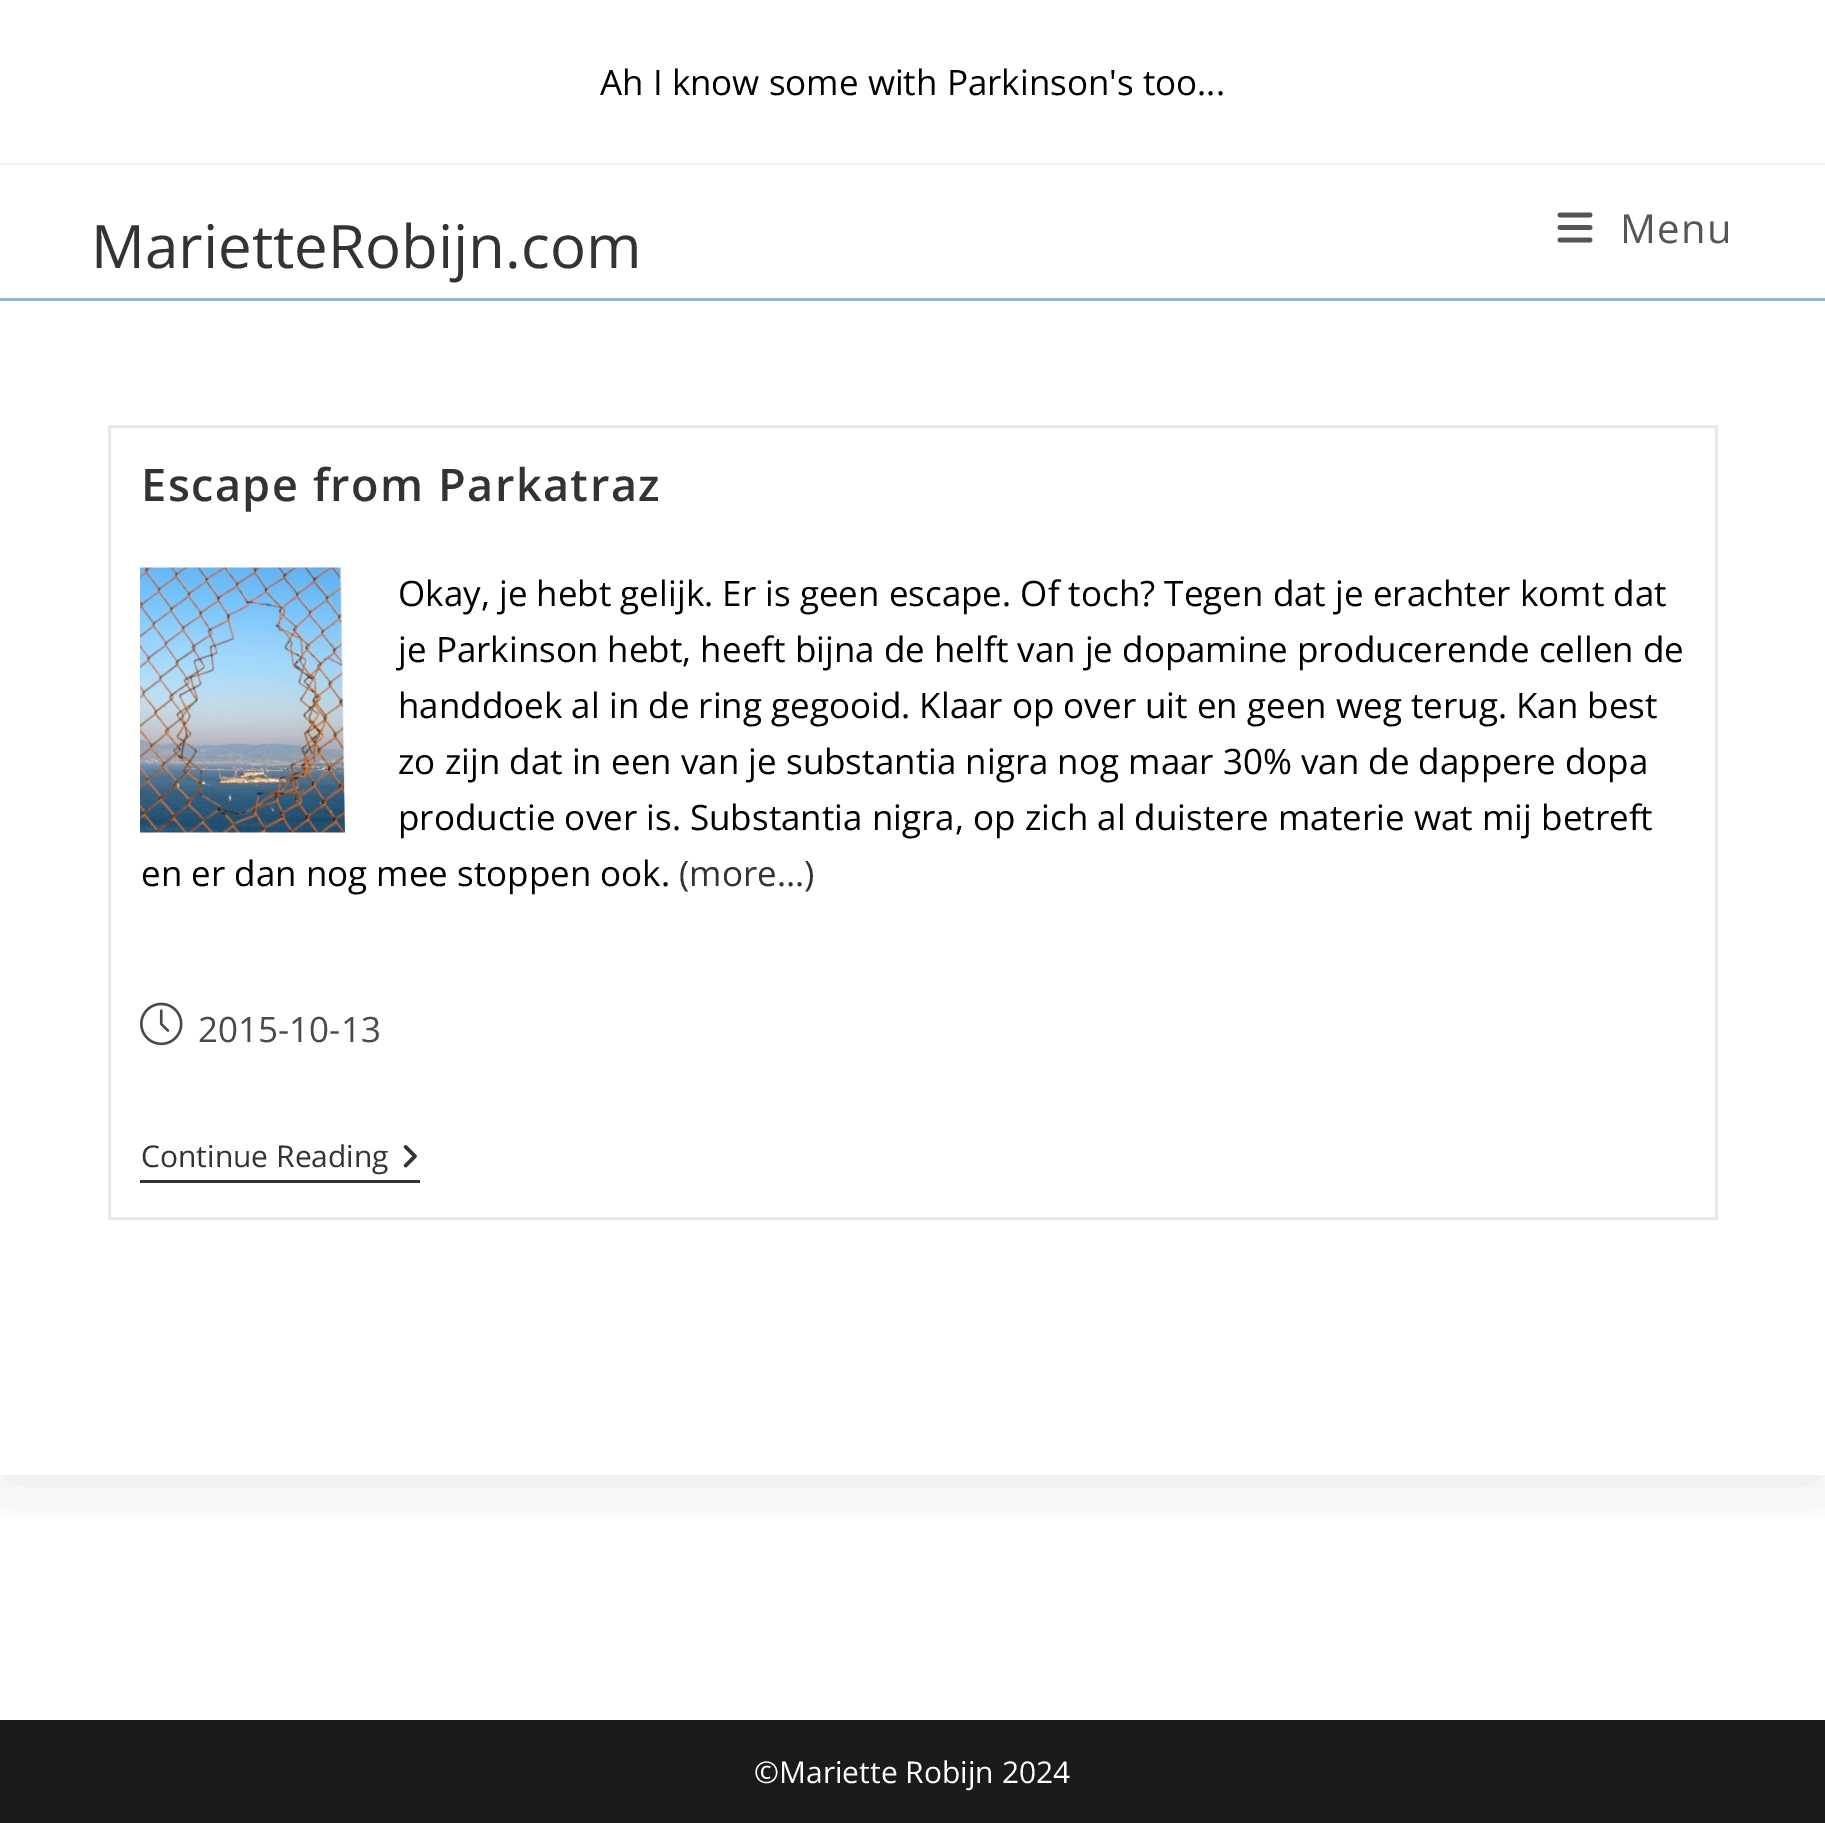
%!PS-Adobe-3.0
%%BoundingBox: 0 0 1825 1823
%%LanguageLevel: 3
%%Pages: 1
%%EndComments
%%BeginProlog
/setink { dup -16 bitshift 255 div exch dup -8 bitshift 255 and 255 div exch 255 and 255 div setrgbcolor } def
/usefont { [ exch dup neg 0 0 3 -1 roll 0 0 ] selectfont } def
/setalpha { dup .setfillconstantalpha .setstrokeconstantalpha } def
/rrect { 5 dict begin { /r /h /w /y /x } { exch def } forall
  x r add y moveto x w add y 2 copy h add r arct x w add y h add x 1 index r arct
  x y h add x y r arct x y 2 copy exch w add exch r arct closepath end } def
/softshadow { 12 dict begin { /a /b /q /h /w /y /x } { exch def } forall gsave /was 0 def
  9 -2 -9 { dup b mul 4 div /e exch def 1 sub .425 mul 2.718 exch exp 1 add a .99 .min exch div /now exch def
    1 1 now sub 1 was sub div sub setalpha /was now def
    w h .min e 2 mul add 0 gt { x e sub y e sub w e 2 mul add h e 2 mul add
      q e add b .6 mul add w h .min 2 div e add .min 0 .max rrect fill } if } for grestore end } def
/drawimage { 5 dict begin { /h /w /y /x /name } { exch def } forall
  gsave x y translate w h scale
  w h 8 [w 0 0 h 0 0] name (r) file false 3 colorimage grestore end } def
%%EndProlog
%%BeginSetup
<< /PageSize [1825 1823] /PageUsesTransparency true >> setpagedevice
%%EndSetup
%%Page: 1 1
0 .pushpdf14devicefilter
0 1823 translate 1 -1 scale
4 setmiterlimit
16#FFFFFF setink
0 0 1825 1823 rectfill
gsave
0 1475 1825 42 rectclip
16#000000 setink
0 300 1825 1175 0 50 0.1 softshadow
grestore
16#F1F1F1 setink
0 163 1825 2 rectfill
/OpenSans-Regular 35 usefont
16#000000 setink
600 95 moveto (Ah I know some with Parkinson's too...) show
16#FFFFFF setink
0 236 1825 62 rectfill
16#8FB9DF setink
0 298 1825 3 rectfill
/OpenSans-Regular 60 usefont
16#333333 setink
91 268 moveto (MarietteRobijn.com) show
(img1.raw) 1557 212 36 31 drawimage
/OpenSans-Regular 40 usefont
16#555555 setink
1620 243 moveto 1.5 0 (Menu) ashow
16#E9E9E9 setink
3 setlinewidth
109.5 426.5 1607 792 rectstroke
/OpenSans-SemiBold 45 usefont
16#333333 setink
141 501 moveto 1.5 0 (Escape from Parkatraz) ashow
(img2.raw) 140 567 205 266 drawimage
/OpenSans-Regular 35 usefont
16#000000 setink
[
    [(Okay, je hebt gelijk. Er is geen escape. Of toch? Tegen dat je erachter komt dat) 398 606]
    [(je Parkinson hebt, heeft bijna de helft van je dopamine producerende cellen de) 398 662]
    [(handdoek al in de ring gegooid. Klaar op over uit en geen weg terug. Kan best) 398 718]
    [(zo zijn dat in een van je substantia nigra nog maar 30% van de dappere dopa) 398 774]
    [(productie over is. Substantia nigra, op zich al duistere materie wat mij betreft) 398 830]
    [(en er dan nog mee stoppen ook.) 141 886]
] { aload pop moveto show } forall
16#333333 setink
679 886 moveto (\(more…\)) show
(img3.raw) 140 1002 43 44 drawimage
16#4A4A4A setink
198 1042 moveto (2015-10-13) show
16#333333 setink
140 1180 280 3 rectfill
/OpenSans-Regular 30 usefont
141 1167 moveto (Continue Reading) show
(img4.raw) 403 1145 14 23 drawimage
16#1B1B1B setink
0 1720 1825 103 rectfill
16#FFFFFF setink
754 1783 moveto (©Mariette Robijn 2024) show
.poppdf14devicefilter showpage
%%EOF
